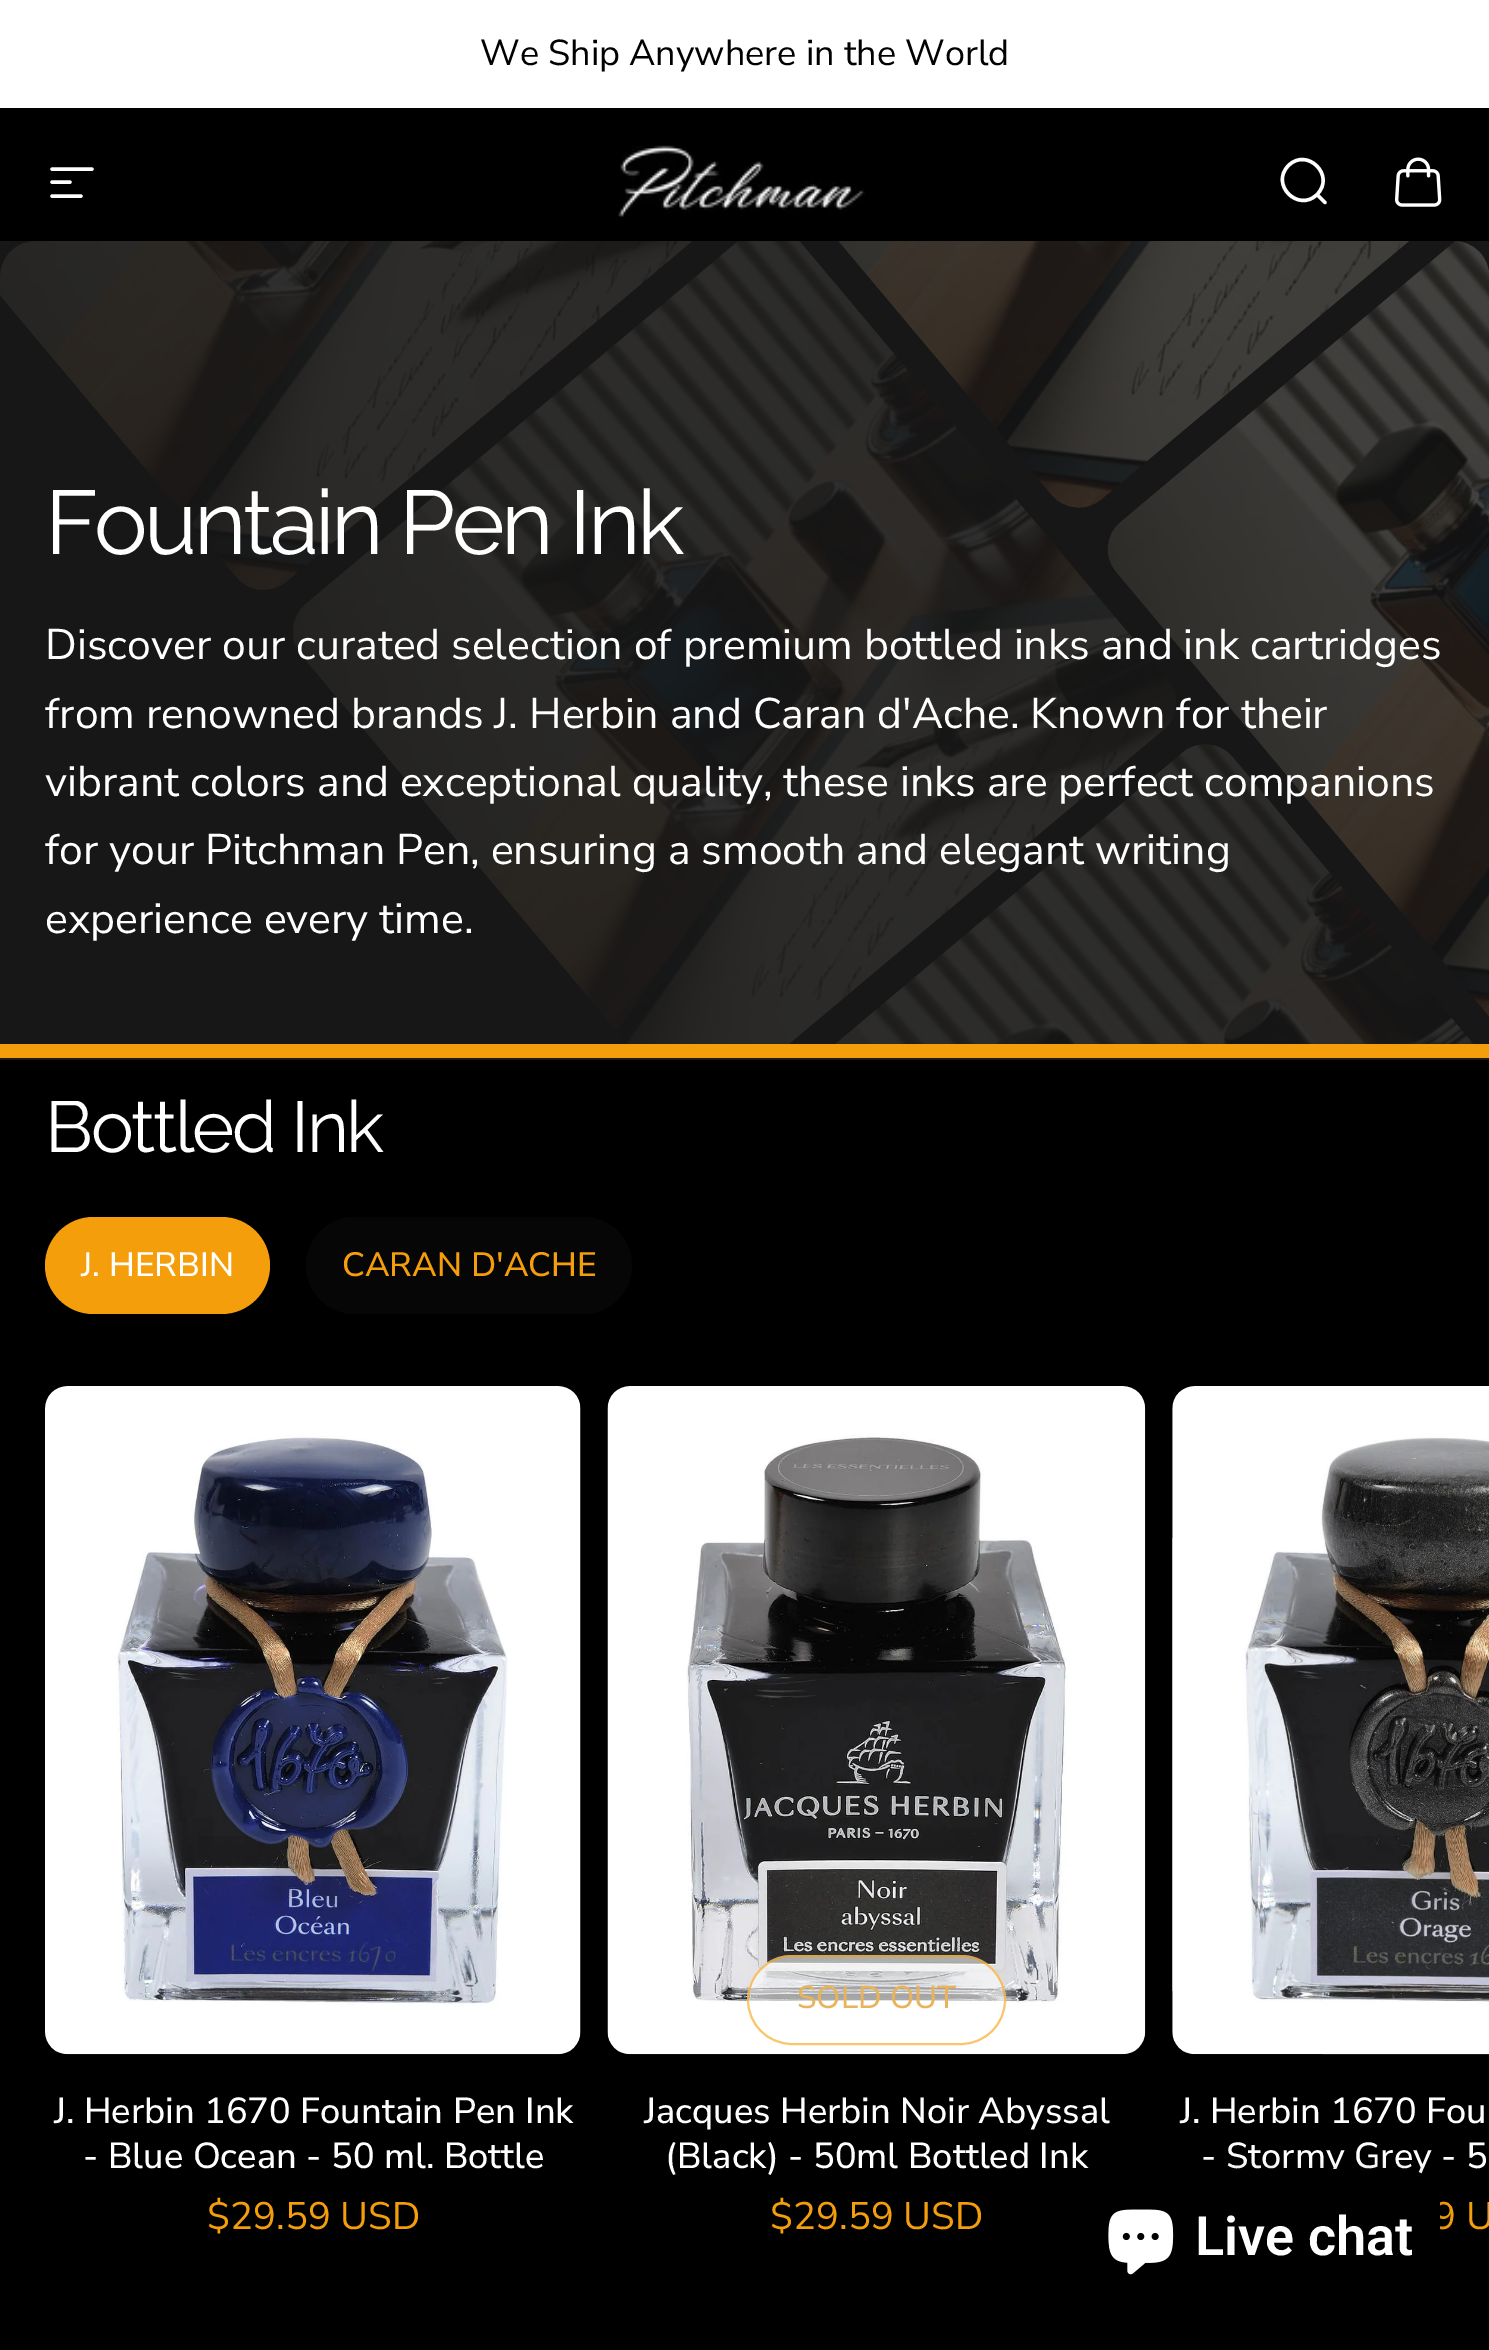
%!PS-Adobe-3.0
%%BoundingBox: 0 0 1489 2350
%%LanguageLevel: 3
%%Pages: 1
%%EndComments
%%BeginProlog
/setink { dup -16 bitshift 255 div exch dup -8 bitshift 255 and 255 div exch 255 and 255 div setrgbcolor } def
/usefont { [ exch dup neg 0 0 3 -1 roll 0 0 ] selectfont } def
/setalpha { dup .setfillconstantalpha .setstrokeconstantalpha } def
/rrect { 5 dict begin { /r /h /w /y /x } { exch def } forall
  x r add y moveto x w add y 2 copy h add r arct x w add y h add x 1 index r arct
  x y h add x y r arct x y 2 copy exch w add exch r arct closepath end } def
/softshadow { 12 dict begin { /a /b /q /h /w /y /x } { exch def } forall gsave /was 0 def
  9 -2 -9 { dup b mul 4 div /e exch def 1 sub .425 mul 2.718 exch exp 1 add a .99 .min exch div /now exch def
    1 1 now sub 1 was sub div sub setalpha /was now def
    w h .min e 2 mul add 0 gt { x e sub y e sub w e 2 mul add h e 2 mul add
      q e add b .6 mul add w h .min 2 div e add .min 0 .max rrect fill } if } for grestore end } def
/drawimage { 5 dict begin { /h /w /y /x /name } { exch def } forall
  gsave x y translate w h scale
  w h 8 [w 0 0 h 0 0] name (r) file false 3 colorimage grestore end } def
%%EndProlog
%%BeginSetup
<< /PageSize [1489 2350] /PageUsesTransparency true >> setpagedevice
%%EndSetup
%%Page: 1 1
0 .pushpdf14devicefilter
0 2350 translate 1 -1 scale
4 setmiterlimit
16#FFFFFF setink
0 0 1489 2350 rectfill
/NunitoSans-Regular 36 usefont
16#000000 setink
480 65 moveto (We Ship Anywhere in the World) show
0 108 1489 133 rectfill
16#FFFFFF setink
3.4 setlinewidth
1 setlinecap
52 169 moveto 92 169 lineto 52 182 moveto 70 182 lineto 52 196 moveto 81 196 lineto stroke
(img1.raw) 618 145 247 72 drawimage
1325 202.5 moveto 1317 194.5 lineto 1317 194.5 moveto 1336 175.5 1307 147 1288.5 165.5 curveto 1269.5 184.5 1298.5 213 1317 194.5 curveto closepath stroke
(img2.raw) 1395 157 47 50 drawimage
16#171717 setink
0 241 1489 803 rectfill
(img3.raw) 0 241 692 349 drawimage
(img6.raw) 838 241 571 267 drawimage
(img7.raw) 1107 241 382 775 drawimage
(img4.raw) 293 241 883 803 drawimage
(img5.raw) 835 744 638 300 drawimage
/Raleway-Regular 90 usefont
16#FFFFFF setink
45 554 moveto -3.6 0 (Fountain Pen Ink) ashow
/NunitoSans-Regular 42.75 usefont
[
    [(Discover our curated selection of premium bottled inks and ink cartridges) 45 659]
    [(from renowned brands J. Herbin and Caran d'Ache. Known for their) 45 728]
    [(vibrant colors and exceptional quality, these inks are perfect companions) 45 796]
    [(for your Pitchman Pen, ensuring a smooth and elegant writing) 45 864]
    [(experience every time.) 45 933]
] { aload pop moveto show } forall
[
    [0 1044 1489 14 16#F59E0B]
    [0 1060 1489 1290 16#000000]
    [0 1058 1489 2 16#1A1A1A]
] { aload pop setink rectfill } forall
/Raleway-Regular 72 usefont
16#FFFFFF setink
45 1152 moveto -2.25 0 (Bottled Ink) ashow
16#F59E0B setink
45 1217 225 97 48.5 rrect fill
/NunitoSans-Medium 33.75 usefont
16#FFFFFF setink
81 1276 moveto (J. HERBIN) show
16#060606 setink
306 1217 326 97 48.5 rrect fill
16#F59E0B setink
342 1276 moveto (CARAN D'ACHE) show
(img8.raw) 45 1386 536 669 drawimage
/NunitoSans-Medium 36.2 usefont
16#FFFFFF setink
54 2123 moveto (J. Herbin 1670 Fountain Pen Ink) show
83 2168 moveto (- Blue Ocean - 50 ml. Bottle) show
/NunitoSans-Regular 38.25 usefont
16#F59E0B setink
207 2229 moveto ($29.59 USD) show
(img9.raw) 607 1386 539 669 drawimage
0.6 setalpha
16#FFFFFF setink
747 1955 259 90 45 rrect fill
16#F59E0B setink
2 setlinewidth
0 setlinecap
748 1956 257 88 44 rrect stroke
/NunitoSans-Medium 31.5 usefont
1 setalpha
16#E8B35B setink
797 2008 moveto (SOLD OUT) show
/NunitoSans-Medium 36.2 usefont
16#FFFFFF setink
644 2123 moveto (Jacques Herbin Noir Abyssal) show
665 2168 moveto (\(Black\) - 50ml Bottled Ink) show
/NunitoSans-Regular 38.25 usefont
16#F59E0B setink
770 2229 moveto ($29.59 USD) show
(img10.raw) 1172 1386 317 669 drawimage
/NunitoSans-Medium 36.2 usefont
16#FFFFFF setink
1180 2123 moveto (J. Herbin 1670 Fou) show
1201 2168 moveto (- Stormy Grey - 5) show
/NunitoSans-Regular 38.25 usefont
16#F59E0B setink
1433 2229 moveto (9 U) show
16#000000 setink
1080 2169 360 135 36 5.5 0.15 softshadow
1080 2169 360 135 36 rrect fill
(img11.raw) 1108 2209 66 66 drawimage
/Roboto-SemiBold 54 usefont
16#FFFFFF setink
1195 2255 moveto (Live chat) show
.poppdf14devicefilter showpage
%%EOF
